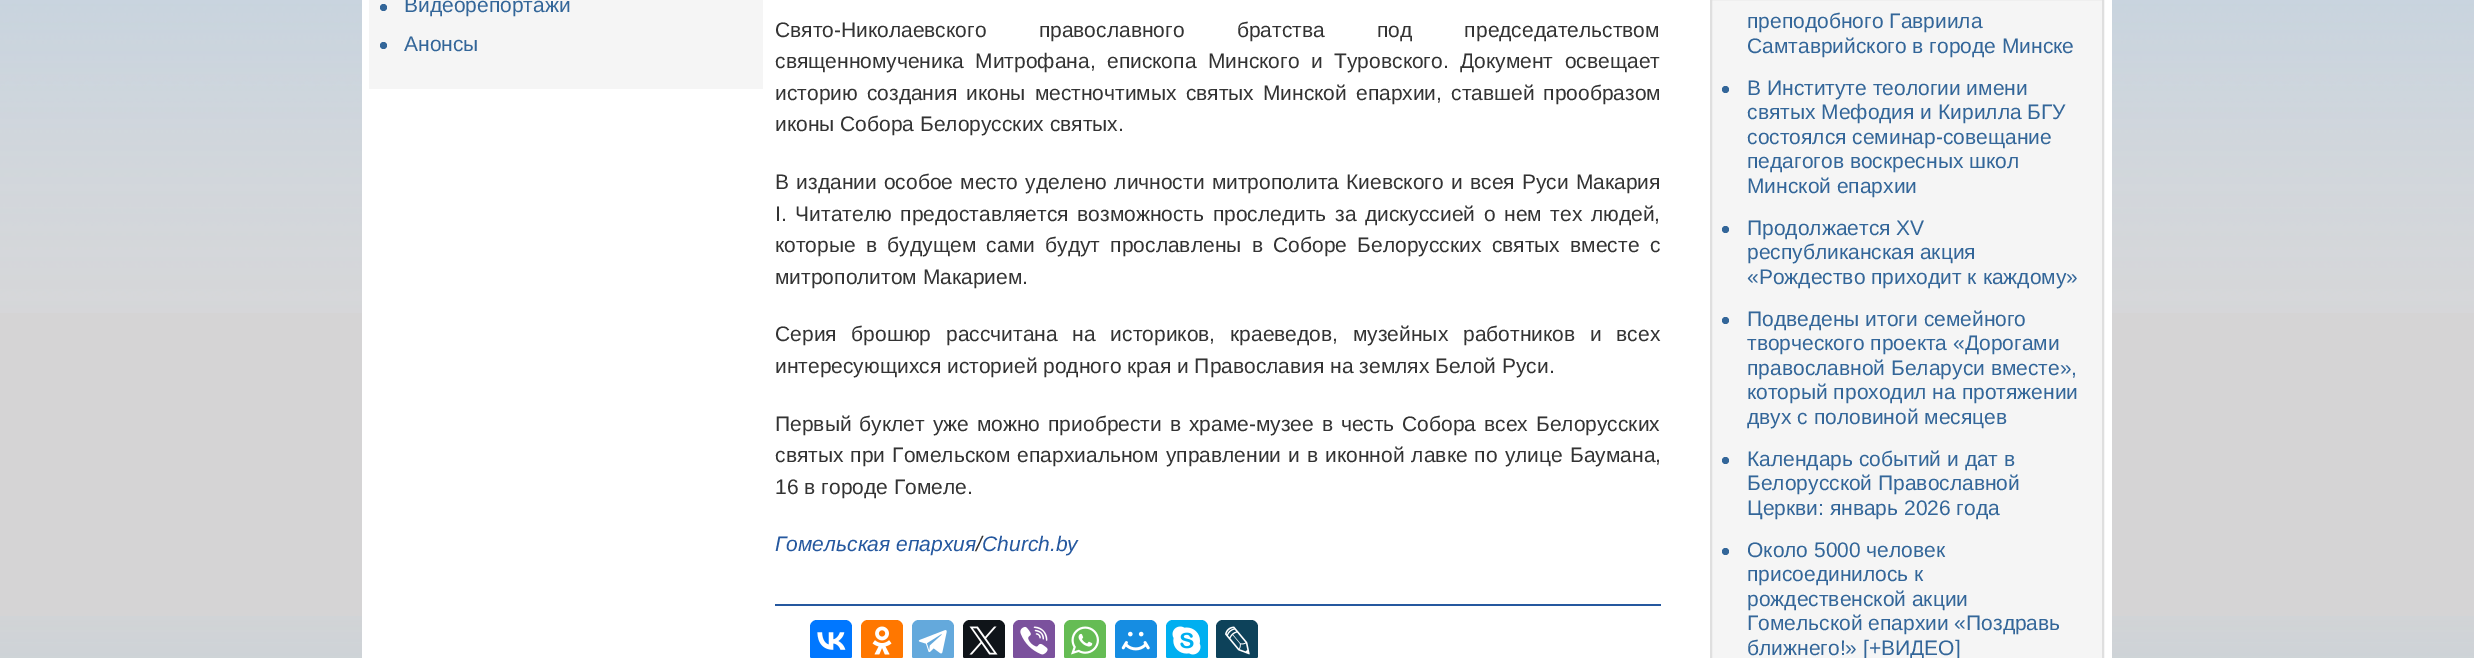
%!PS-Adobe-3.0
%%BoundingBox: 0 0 2474 658
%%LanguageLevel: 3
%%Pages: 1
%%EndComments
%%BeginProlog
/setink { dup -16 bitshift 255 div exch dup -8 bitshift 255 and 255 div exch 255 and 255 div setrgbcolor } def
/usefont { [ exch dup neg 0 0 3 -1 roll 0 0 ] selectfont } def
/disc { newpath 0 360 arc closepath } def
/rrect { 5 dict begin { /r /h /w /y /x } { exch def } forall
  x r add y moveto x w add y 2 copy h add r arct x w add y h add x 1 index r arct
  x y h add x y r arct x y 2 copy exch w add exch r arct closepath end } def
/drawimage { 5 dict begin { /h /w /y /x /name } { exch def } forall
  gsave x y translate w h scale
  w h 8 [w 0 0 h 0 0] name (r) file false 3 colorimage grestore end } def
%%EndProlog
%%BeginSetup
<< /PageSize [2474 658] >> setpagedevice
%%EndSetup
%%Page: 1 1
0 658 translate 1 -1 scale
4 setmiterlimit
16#D5D4D5 setink
0 0 2474 658 rectfill
(img1.raw) 0 0 2474 313 drawimage
(img11.raw) 0 616 2474 42 drawimage
16#FFFFFF setink
362 0 1750 658 rectfill
16#F5F5F5 setink
369 0 394 89 rectfill
16#336699 setink
383.5 7.5 3.5 disc fill
/LiberationSans-Regular 21 usefont
404 12 moveto (Видеорепортажи) show
383.5 45.5 3.5 disc fill
404 51 moveto (Анонсы) show
16#333333 setink
775 37 moveto 46.5 0 32 (Свято-Николаевского православного братства под председательством) widthshow
775 68 moveto 5.75 0 32 (священномученика Митрофана, епископа Минского и Туровского. Документ освещает) widthshow
775 100 moveto 3.25 0 32 (историю создания иконы местночтимых святых Минской епархии, ставшей прообразом) widthshow
775 131 moveto (иконы Собора Белорусских святых.) show
775 189 moveto 1.4 0 32 (В издании особое место уделено личности митрополита Киевского и всея Руси Макария) widthshow
775 221 moveto 2.75 0 32 (I. Читателю предоставляется возможность проследить за дискуссией о нем тех людей,) widthshow
775 252 moveto 4.5 0 32 (которые в будущем сами будут прославлены в Соборе Белорусских святых вместе с) widthshow
775 284 moveto (митрополитом Макарием.) show
775 341 moveto 9 0 32 (Серия брошюр рассчитана на историков, краеведов, музейных работников и всех) widthshow
775 373 moveto (интересующихся историей родного края и Православия на землях Белой Руси.) show
775 431 moveto 2.1 0 32 (Первый буклет уже можно приобрести в храме-музее в честь Собора всех Белорусских) widthshow
775 462 moveto 1.25 0 32 (святых при Гомельском епархиальном управлении и в иконной лавке по улице Баумана,) widthshow
775 494 moveto (16 в городе Гомеле.) show
/LiberationSans-Italic 21 usefont
16#25589F setink
775 551 moveto (Гомельская епархия) show
16#333333 setink
976 551 moveto (/) show
16#25589F setink
982 551 moveto (Church.by) show
775 604 886 2 rectfill
16#0077FF setink
810 620 42 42 7 rrect fill
(img2.raw) 817 632 29 18 drawimage
16#FF7700 setink
861 620 42 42 7 rrect fill
(img3.raw) 872 626 20 29 drawimage
16#64A9DC setink
912 620 42 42 7 rrect fill
(img4.raw) 918 630 29 24 drawimage
16#0F1419 setink
963 620 42 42 7 rrect fill
(img5.raw) 969 626 29 29 drawimage
16#7B519D setink
1013 620 42 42 7 rrect fill
(img6.raw) 1020 626 28 29 drawimage
16#65BC54 setink
1064 620 42 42 7 rrect fill
(img7.raw) 1071 626 28 29 drawimage
16#168DE2 setink
1115 620 42 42 7 rrect fill
(img8.raw) 1121 631 29 20 drawimage
16#00AFF0 setink
1166 620 42 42 7 rrect fill
(img9.raw) 1172 626 29 29 drawimage
16#0D425A setink
1216 620 42 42 7 rrect fill
(img10.raw) 1225 626 25 29 drawimage
16#F5F5F5 setink
1711 -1 moveto 2103 -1 lineto 2103 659 lineto 1711 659 lineto closepath gsave fill grestore
16#DFDFDF setink
2 setlinewidth
stroke
/LiberationSans-Regular 21 usefont
16#336699 setink
1747 28 moveto (преподобного Гавриила) show
1747 53 moveto (Самтаврийского в городе Минске) show
1725.5 89.5 3.5 disc fill
[
    [(В Институте теологии имени) 1747 95]
    [(святых Мефодия и Кирилла БГУ) 1747 119]
    [(состоялся семинар-совещание) 1747 144]
    [(педагогов воскресных школ) 1747 168]
    [(Минской епархии) 1747 193]
] { aload pop moveto show } forall
1725.5 229.5 3.5 disc fill
[
    [(Продолжается XV) 1747 235]
    [(республиканская акция) 1747 259]
    [(«Рождество приходит к каждому») 1747 284]
] { aload pop moveto show } forall
1725.5 320.5 3.5 disc fill
[
    [(Подведены итоги семейного) 1747 326]
    [(творческого проекта «Дорогами) 1747 350]
    [(православной Беларуси вместе»,) 1747 375]
    [(который проходил на протяжении) 1747 399]
    [(двух с половиной месяцев) 1747 424]
] { aload pop moveto show } forall
1725.5 460.5 3.5 disc fill
[
    [(Календарь событий и дат в) 1747 466]
    [(Белорусской Православной) 1747 490]
    [(Церкви: январь 2026 года) 1747 515]
] { aload pop moveto show } forall
1725.5 551.5 3.5 disc fill
[
    [(Около 5000 человек) 1747 557]
    [(присоединилось к) 1747 581]
    [(рождественской акции) 1747 606]
    [(Гомельской епархии «Поздравь) 1747 630]
    [(ближнего!» [+ВИДЕО]) 1747 655]
] { aload pop moveto show } forall
showpage
%%EOF
